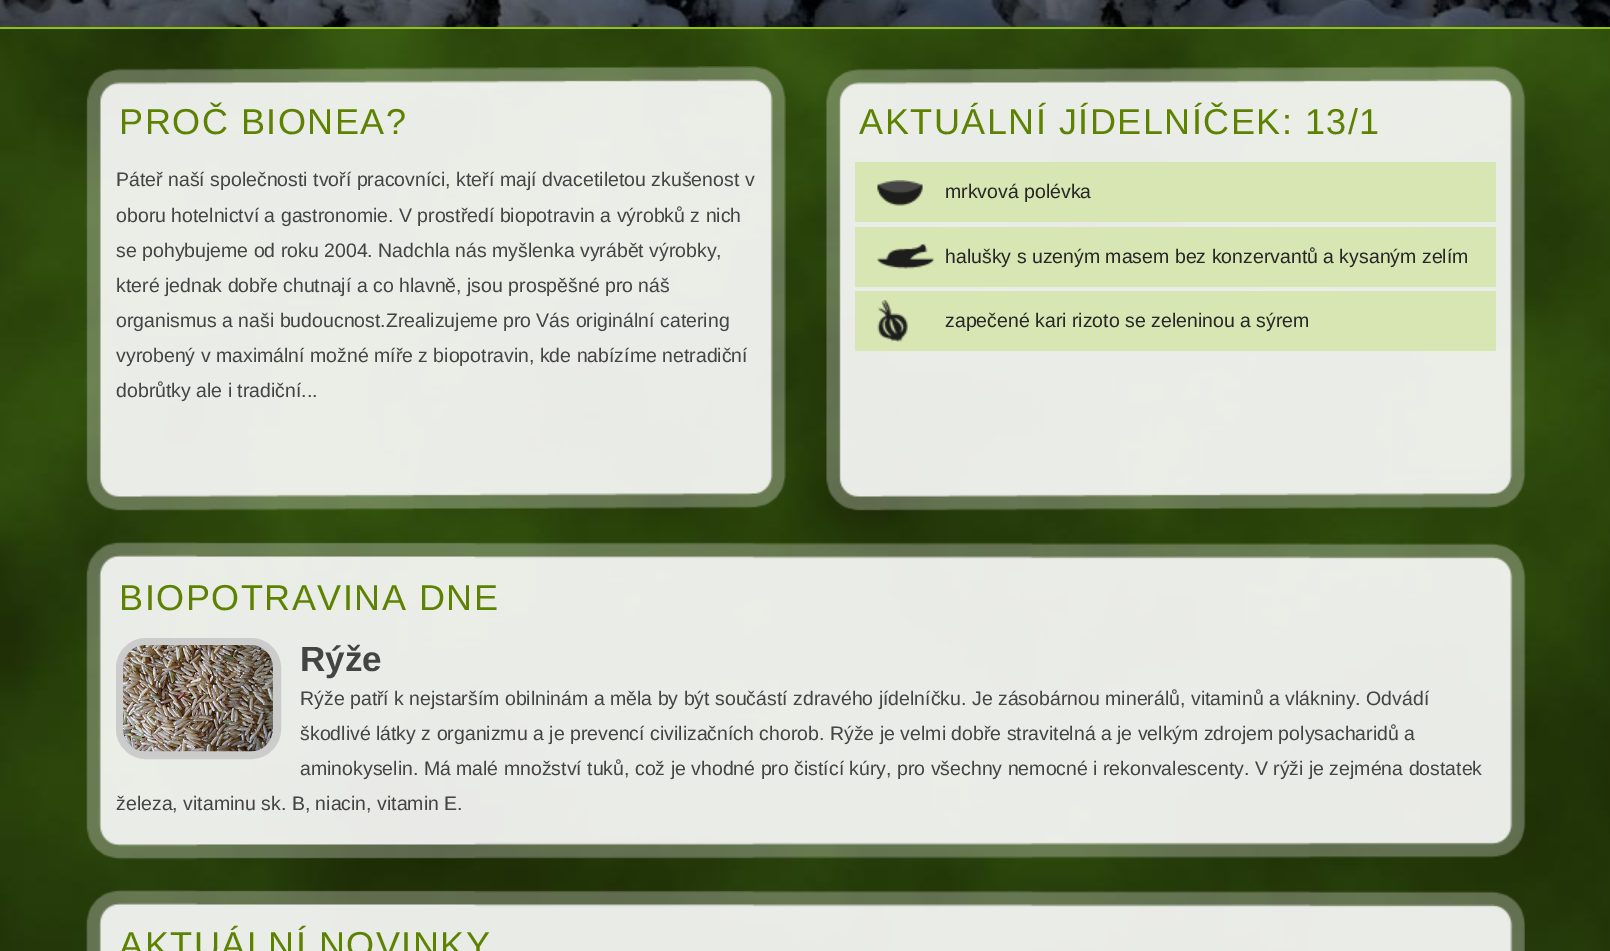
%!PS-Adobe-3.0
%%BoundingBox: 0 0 1610 951
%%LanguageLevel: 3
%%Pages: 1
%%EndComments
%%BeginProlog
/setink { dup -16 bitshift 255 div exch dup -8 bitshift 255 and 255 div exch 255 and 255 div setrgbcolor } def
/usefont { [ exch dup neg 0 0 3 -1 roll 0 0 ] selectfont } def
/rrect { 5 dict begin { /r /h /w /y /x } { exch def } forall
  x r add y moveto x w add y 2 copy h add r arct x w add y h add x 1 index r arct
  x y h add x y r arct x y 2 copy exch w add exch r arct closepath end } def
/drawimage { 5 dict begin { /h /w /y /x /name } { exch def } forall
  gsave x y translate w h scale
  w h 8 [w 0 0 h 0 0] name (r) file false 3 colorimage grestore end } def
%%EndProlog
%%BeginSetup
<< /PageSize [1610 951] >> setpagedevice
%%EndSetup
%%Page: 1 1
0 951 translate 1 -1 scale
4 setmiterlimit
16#FFFFFF setink
0 0 1610 951 rectfill
(img1.raw) 0 29 1610 922 drawimage
(img2.raw) 0 0 1610 27 drawimage
16#90C409 setink
0 27 1610 2 rectfill
(img3.raw) 86 66 700 445 drawimage
/LiberationSans-Regular 36 usefont
16#5D8101 setink
119 134 moveto 1.5 0 (PROČ BIONEA?) ashow
/LiberationSans-Regular 19.5 usefont
16#444444 setink
[
    [(Páteř naší společnosti tvoří pracovníci, kteří mají dvacetiletou zkušenost v) 116 186]
    [(oboru hotelnictví a gastronomie. V prostředí biopotravin a výrobků z nich) 116 222]
    [(se pohybujeme od roku 2004. Nadchla nás myšlenka vyrábět výrobky,) 116 257]
    [(které jednak dobře chutnají a co hlavně, jsou prospěšné pro náš) 116 292]
    [(organismus a naši budoucnost.Zrealizujeme pro Vás originální catering) 116 327]
    [(vyrobený v maximální možné míře z biopotravin, kde nabízíme netradiční) 116 362]
    [(dobrůtky ale i tradiční...) 116 397]
] { aload pop moveto show } forall
(img4.raw) 826 66 700 445 drawimage
/LiberationSans-Regular 36 usefont
16#5D8101 setink
859 134 moveto 1.5 0 (AKTUÁLNÍ JÍDELNÍČEK: 13/1) ashow
16#D7E6B2 setink
855 162 641 60 rectfill
(img5.raw) 877 180 46 26 drawimage
/LiberationSans-Regular 19.5 usefont
16#272727 setink
945 198 moveto (mrkvová polévka) show
16#D7E6B2 setink
855 227 641 60 rectfill
(img6.raw) 877 244 58 25 drawimage
16#272727 setink
945 263 moveto (halušky s uzeným masem bez konzervantů a kysaným zelím) show
16#D7E6B2 setink
855 291 641 60 rectfill
(img7.raw) 877 300 31 42 drawimage
16#272727 setink
945 327 moveto (zapečené kari rizoto se zeleninou a sýrem) show
(img8.raw) 86 822 1440 38 drawimage
(img9.raw) 86 542 1440 280 drawimage
/LiberationSans-Regular 36 usefont
16#5D8101 setink
119 610 moveto 1.5 0 (BIOPOTRAVINA DNE) ashow
16#CCCCCC setink
8 setlinewidth
120 642 157 113 26 rrect stroke
(img10.raw) 123 645 150 107 drawimage
/LiberationSans-Bold 35 usefont
16#444444 setink
300 671 moveto (Rýže) show
/LiberationSans-Regular 19.5 usefont
[
    [(Rýže patří k nejstarším obilninám a měla by být součástí zdravého jídelníčku. Je zásobárnou minerálů, vitaminů a vlákniny. Odvádí) 300 705]
    [(škodlivé látky z organizmu a je prevencí civilizačních chorob. Rýže je velmi dobře stravitelná a je velkým zdrojem polysacharidů a) 300 740]
    [(aminokyselin. Má malé množství tuků, což je vhodné pro čistící kúry, pro všechny nemocné i rekonvalescenty. V rýži je zejména dostatek) 300 775]
    [(železa, vitaminu sk. B, niacin, vitamin E.) 116 810]
] { aload pop moveto show } forall
(img11.raw) 86 890 1439 61 drawimage
/LiberationSans-Regular 36 usefont
16#5D8101 setink
119 957 moveto 1.5 0 (AKTUÁLNÍ NOVINKY) ashow
showpage
%%EOF
